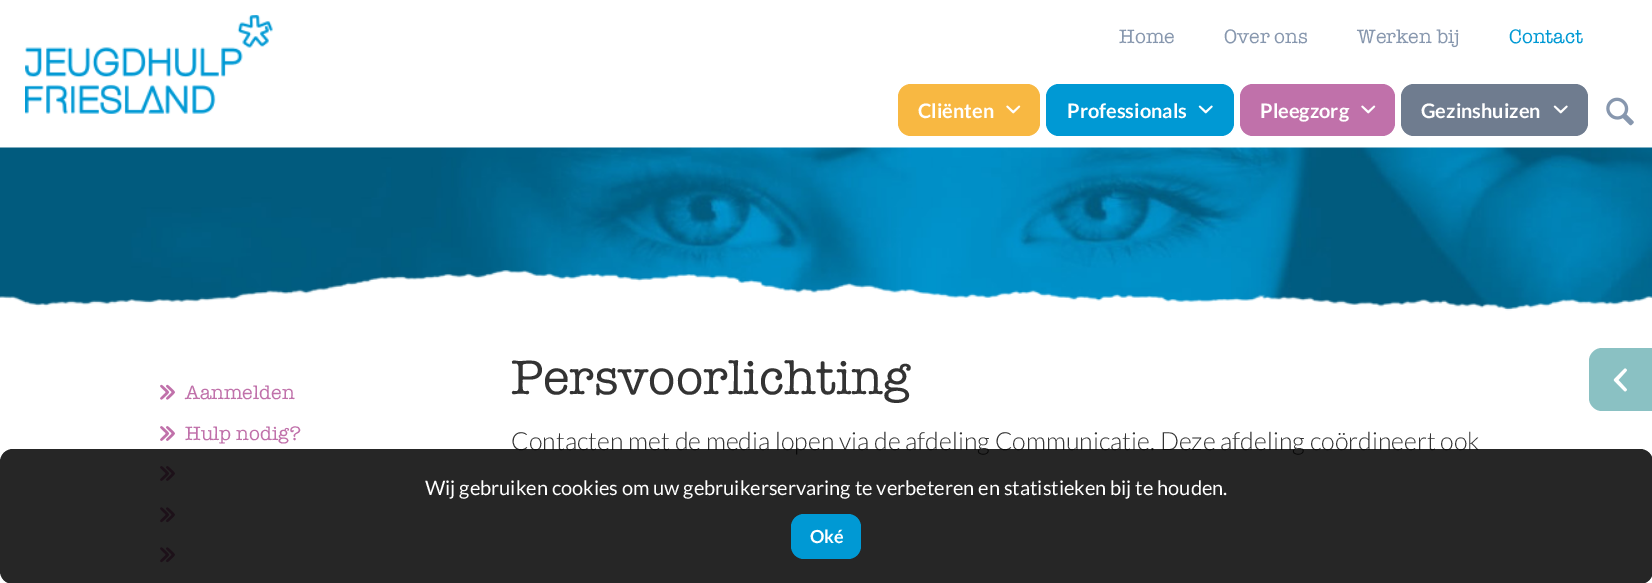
%!PS-Adobe-3.0
%%BoundingBox: 0 0 1652 583
%%LanguageLevel: 3
%%Pages: 1
%%EndComments
%%BeginProlog
/setink { dup -16 bitshift 255 div exch dup -8 bitshift 255 and 255 div exch 255 and 255 div setrgbcolor } def
/usefont { [ exch dup neg 0 0 3 -1 roll 0 0 ] selectfont } def
/setalpha { dup .setfillconstantalpha .setstrokeconstantalpha } def
/rrect { 5 dict begin { /r /h /w /y /x } { exch def } forall
  x r add y moveto x w add y 2 copy h add r arct x w add y h add x 1 index r arct
  x y h add x y r arct x y 2 copy exch w add exch r arct closepath end } def
/drawimage { 5 dict begin { /h /w /y /x /name } { exch def } forall
  gsave x y translate w h scale
  w h 8 [w 0 0 h 0 0] name (r) file false 3 colorimage grestore end } def
%%EndProlog
%%BeginSetup
<< /PageSize [1652 583] /PageUsesTransparency true >> setpagedevice
%%EndSetup
%%Page: 1 1
0 .pushpdf14devicefilter
0 583 translate 1 -1 scale
4 setmiterlimit
16#FFFFFF setink
0 0 1652 583 rectfill
(img1.raw) 25 15 248 99 drawimage
/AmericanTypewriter-Regular 20 usefont
16#8797AE setink
[
    [(Home) 1119 43]
    [(Over ons) 1224 43]
    [(Werken bij) 1357 43]
] { aload pop moveto show } forall
16#0099D4 setink
1509 43 moveto (Contact) show
16#F8B842 setink
898 84 142 52 13 rrect fill
/Lato-Bold 20 usefont
16#FFFFFF setink
918 118 moveto (Cliënten) show
(img2.raw) 1006 105 15 9 drawimage
16#0099D4 setink
1046 84 188 52 13 rrect fill
16#FFFFFF setink
1067 118 moveto (Professionals) show
(img3.raw) 1198 105 15 9 drawimage
16#C071AA setink
1240 84 155 52 13 rrect fill
16#FFFFFF setink
1260 118 moveto (Pleegzorg) show
(img4.raw) 1361 105 15 9 drawimage
16#6F7C8F setink
1401 84 187 52 13 rrect fill
16#FFFFFF setink
1421 118 moveto (Gezinshuizen) show
(img5.raw) 1553 105 15 9 drawimage
(img6.raw) 1606 97 28 29 drawimage
(img7.raw) 0 147 1652 164 drawimage
(img8.raw) 0 270 1652 65 drawimage
(img9.raw) 160 384 15 16 drawimage
/AmericanTypewriter-Regular 20 usefont
16#C071AA setink
185 399 moveto (Aanmelden) show
(img10.raw) 160 426 15 15 drawimage
185 440 moveto (Hulp nodig?) show
(img10.raw) 160 466 15 15 drawimage
(img11.raw) 160 507 15 16 drawimage
(img11.raw) 160 547 15 16 drawimage
/AmericanTypewriter-Regular 50 usefont
16#333333 setink
511 394 moveto (Persvoorlichting) show
/Lato-Light 25 usefont
511 450 moveto (Contacten met de media lopen via de afdeling Communicatie. Deze afdeling coördineert ook) show
16#8AC1C3 setink
1602 348 moveto 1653 348 lineto 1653 411 lineto 1602 411 lineto 1595 411 1589 405 1589 398 curveto 1589 361 lineto 1589 354 1595 348 1602 348 curveto closepath fill
(img12.raw) 1613 368 14 24 drawimage
0.85 setalpha
16#000000 setink
0 449 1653 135 13 rrect fill
/Lato-Regular 20 usefont
1 setalpha
16#FFFFFF setink
425 495 moveto (Wij gebruiken cookies om uw gebruikerservaring te verbeteren en statistieken bij te houden.) show
16#0099D4 setink
791 514 70 45 13 rrect fill
/Lato-Bold 18 usefont
16#FFFFFF setink
810 543 moveto (Oké) show
.poppdf14devicefilter showpage
%%EOF
